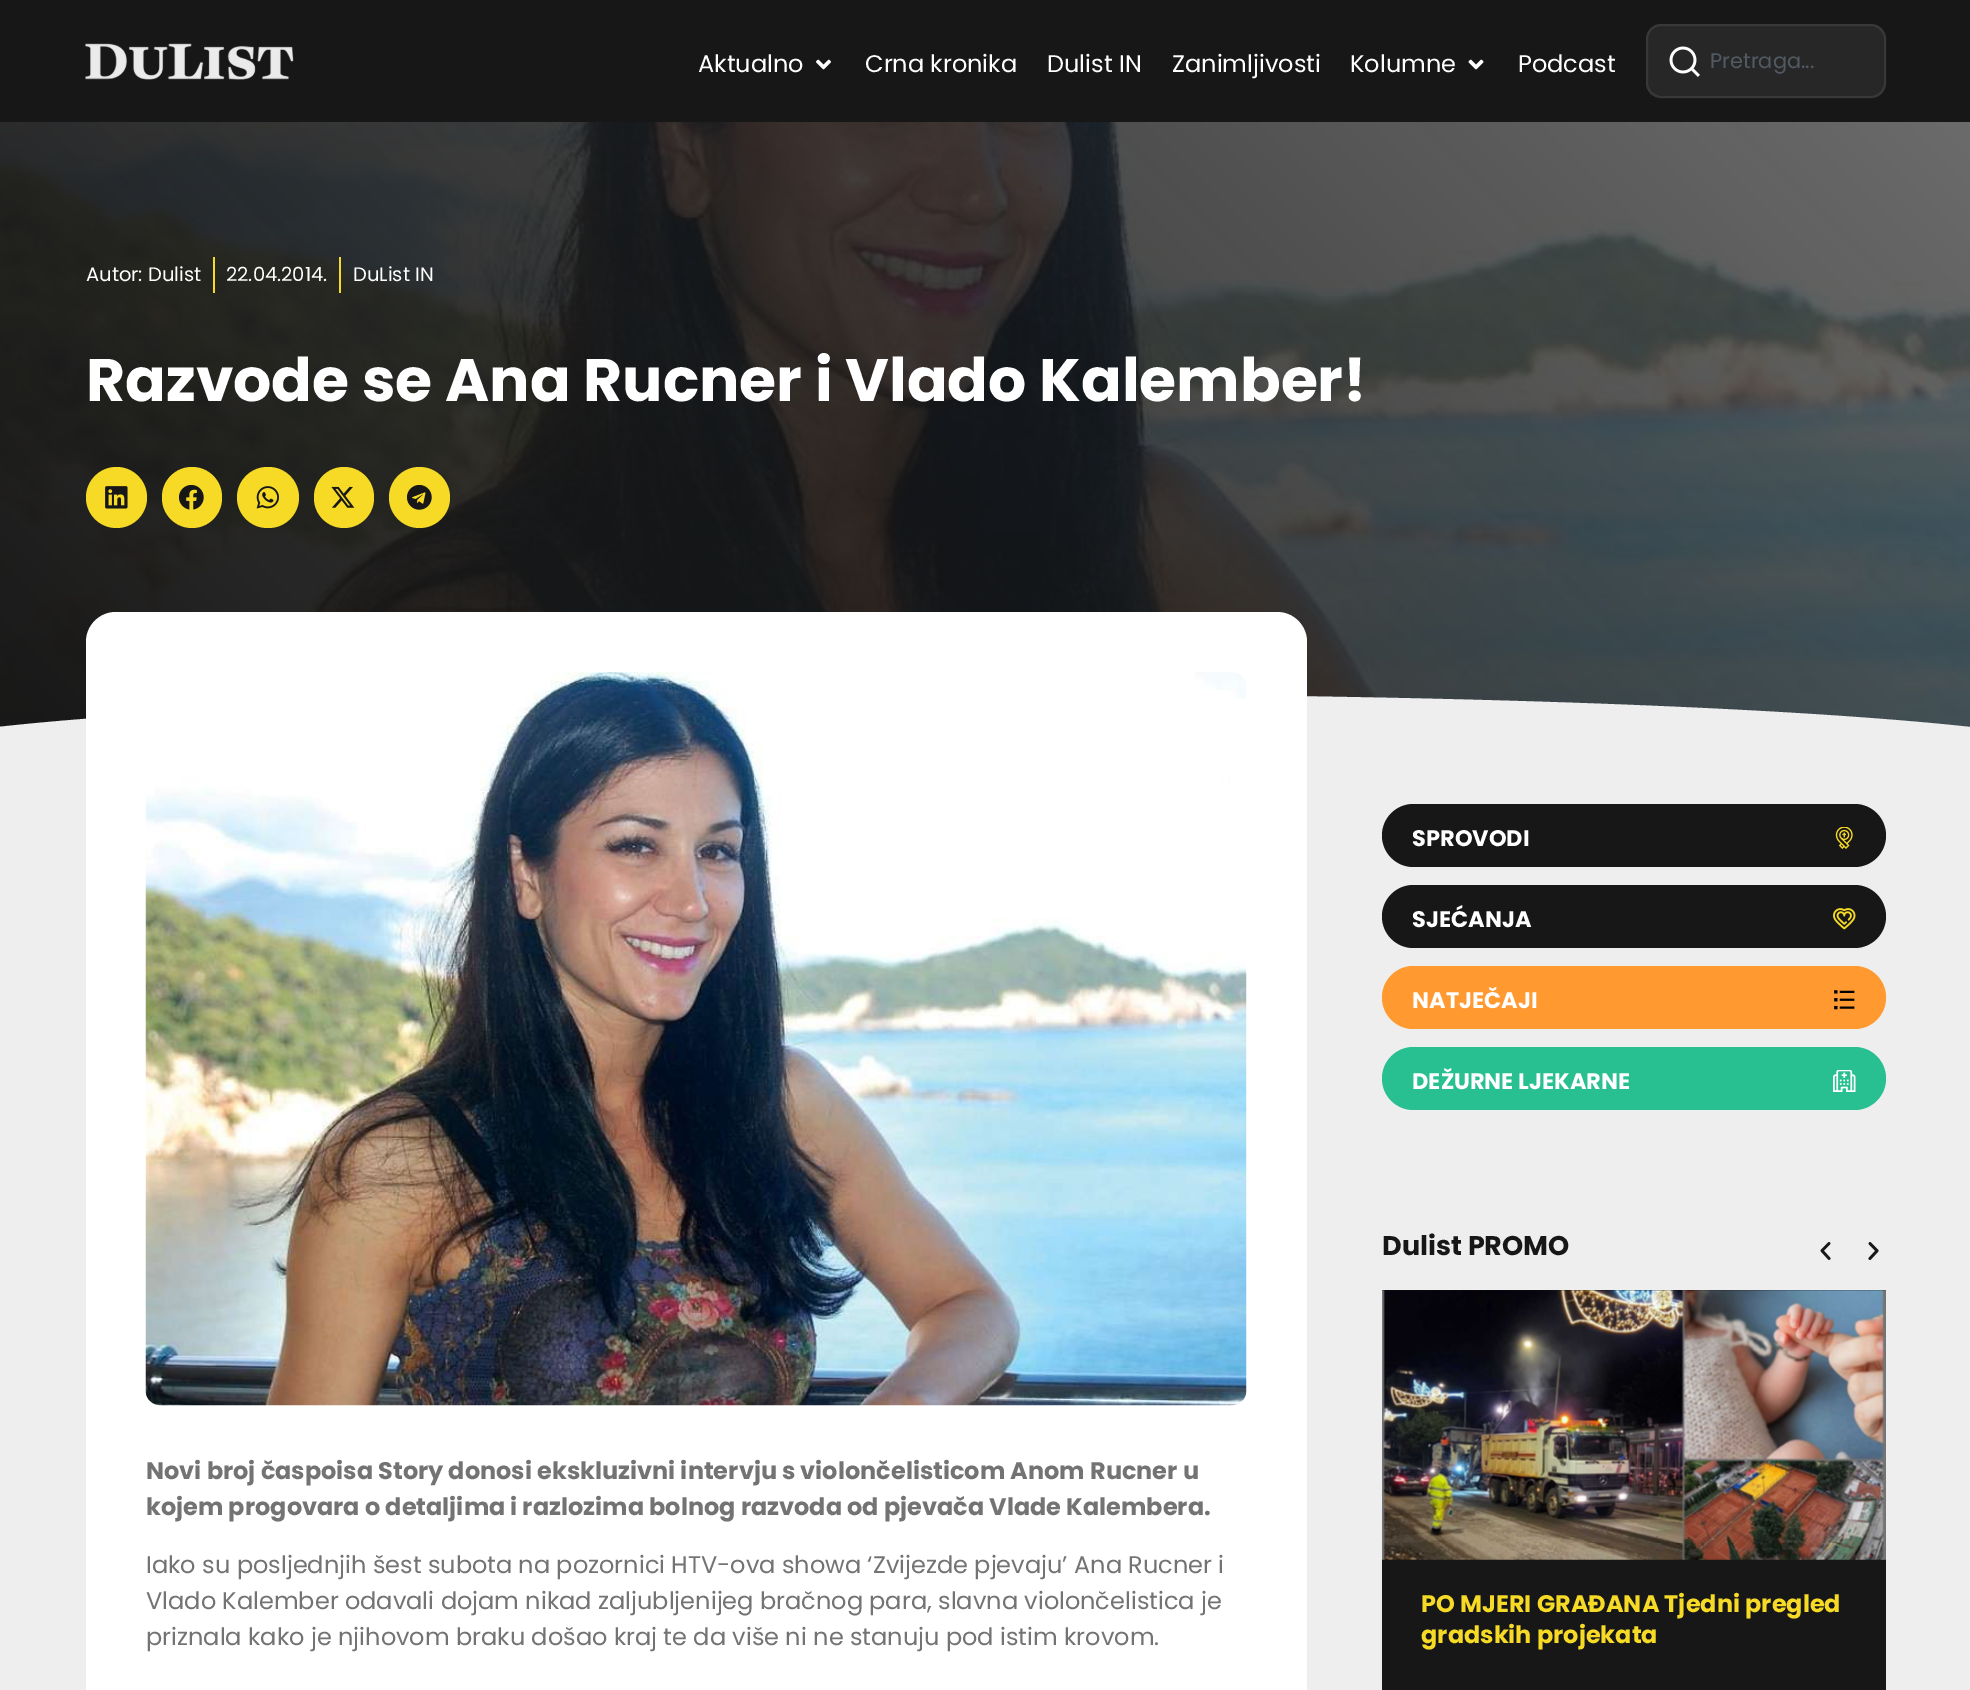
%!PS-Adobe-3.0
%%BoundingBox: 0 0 1970 1690
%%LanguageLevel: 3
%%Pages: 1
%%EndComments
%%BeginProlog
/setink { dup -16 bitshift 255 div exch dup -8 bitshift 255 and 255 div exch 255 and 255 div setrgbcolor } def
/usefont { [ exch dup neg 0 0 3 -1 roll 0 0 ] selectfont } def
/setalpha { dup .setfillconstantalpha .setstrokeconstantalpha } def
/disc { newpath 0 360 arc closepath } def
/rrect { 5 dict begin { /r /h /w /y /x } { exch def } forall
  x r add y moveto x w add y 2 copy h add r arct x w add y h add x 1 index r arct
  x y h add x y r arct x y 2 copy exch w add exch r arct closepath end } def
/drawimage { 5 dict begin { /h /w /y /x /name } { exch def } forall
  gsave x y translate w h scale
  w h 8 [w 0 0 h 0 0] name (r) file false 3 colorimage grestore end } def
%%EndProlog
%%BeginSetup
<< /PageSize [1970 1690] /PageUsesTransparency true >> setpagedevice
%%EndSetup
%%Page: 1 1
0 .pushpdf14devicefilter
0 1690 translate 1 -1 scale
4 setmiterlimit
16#EEEEEE setink
0 0 1970 1690 rectfill
16#171717 setink
0 0 1970 122 rectfill
(img1.raw) 85 43 209 37 drawimage
/Poppins-Regular 24 usefont
16#FFFFFF setink
698 72 moveto (Aktualno) show
(img2.raw) 816 59 15 11 drawimage
[
    [(Crna kronika) 865 72]
    [(Dulist IN) 1047 72]
    [(Zanimljivosti) 1172 72]
    [(Kolumne) 1350 72]
] { aload pop moveto show } forall
(img3.raw) 1468 59 16 11 drawimage
1518 72 moveto (Podcast) show
16#272727 setink
1646 24 240 74 15 rrect fill
0.08 setalpha
16#FFFFFF setink
2 setlinewidth
1647 25 238 72 14 rrect stroke
1 setalpha
(img4.raw) 1669 46 31 31 drawimage
/Poppins-Regular 21 usefont
16#515962 setink
1710 68 moveto (Pretraga...) show
(img5.raw) 0 122 1970 605 drawimage
/Poppins-Regular 19.5 usefont
16#FFFFFF setink
86 281 moveto (Autor: Dulist) show
16#F6DA26 setink
213 257 2 36 rectfill
16#FFFFFF setink
226 281 moveto (22.04.2014.) show
16#F6DA26 setink
339 257 2 36 rectfill
16#FFFFFF setink
353 281 moveto (DuList IN) show
/Poppins-Bold 60 usefont
86 401 moveto (Razvode se Ana Rucner i Vlado Kalember!) show
16#F6DA26 setink
116.5 497.5 30.5 disc fill
(img6.raw) 105 486 23 23 drawimage
162 467 60 61 30 rrect fill
(img7.raw) 179 485 25 25 drawimage
237 467 62 61 30.5 rrect fill
(img8.raw) 256 486 23 23 drawimage
314 467 60 61 30 rrect fill
(img9.raw) 331 486 24 22 drawimage
419.5 497.5 30.5 disc fill
(img10.raw) 407 485 25 25 drawimage
16#EEEEEE setink
-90 743 moveto -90 745 lineto 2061 745 lineto 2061 743 lineto 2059 733 1788 694 985 694 curveto 183 693 -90 733 -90 743 curveto closepath fill
16#FFFFFF setink
86 612 1221 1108 30 rrect fill
(img11.raw) 145 672 1102 734 drawimage
/Poppins-Bold 24 usefont
16#737373 setink
146 1479 moveto (Novi broj časpoisa Story donosi ekskluzivni intervju s violončelisticom Anom Rucner u) show
146 1515 moveto (kojem progovara o detaljima i razlozima bolnog razvoda od pjevača Vlade Kalembera.) show
/Poppins-Regular 24 usefont
[
    [(Iako su posljednjih šest subota na pozornici HTV-ova showa ‘Zvijezde pjevaju’ Ana Rucner i) 146 1573]
    [(Vlado Kalember odavali dojam nikad zaljubljenijeg bračnog para, slavna violončelistica je) 146 1609]
    [(priznala kako je njihovom braku došao kraj te da više ni ne stanuju pod istim krovom.) 146 1645]
] { aload pop moveto show } forall
16#171717 setink
1382 804 504 63 31.5 rrect fill
/Poppins-Bold 22.5 usefont
16#FFFFFF setink
1412 846 moveto (SPROVODI) show
(img12.raw) 1835 827 18 22 drawimage
16#171717 setink
1382 885 504 63 31.5 rrect fill
16#FFFFFF setink
1412 927 moveto (SJEĆANJA) show
(img13.raw) 1833 908 23 22 drawimage
16#FF9930 setink
1382 966 504 63 31.5 rrect fill
16#FFFFFF setink
1412 1008 moveto (NATJEČAJI) show
(img14.raw) 1834 990 21 20 drawimage
16#28C090 setink
1382 1047 504 63 31.5 rrect fill
16#FFFFFF setink
1412 1089 moveto (DEŽURNE LJEKARNE) show
(img15.raw) 1833 1070 23 22 drawimage
/Poppins-Bold 27 usefont
16#171717 setink
1382 1255 moveto (Dulist PROMO) show
(img16.raw) 1820 1242 11 18 drawimage
(img17.raw) 1868 1242 11 18 drawimage
1382 1290 504 400 rectfill
(img18.raw) 1382 1290 504 270 drawimage
/Poppins-Bold 24 usefont
16#F6DA26 setink
1421 1612 moveto (PO MJERI GRAĐANA Tjedni pregled) show
1421 1643 moveto (gradskih projekata) show
.poppdf14devicefilter showpage
%%EOF
